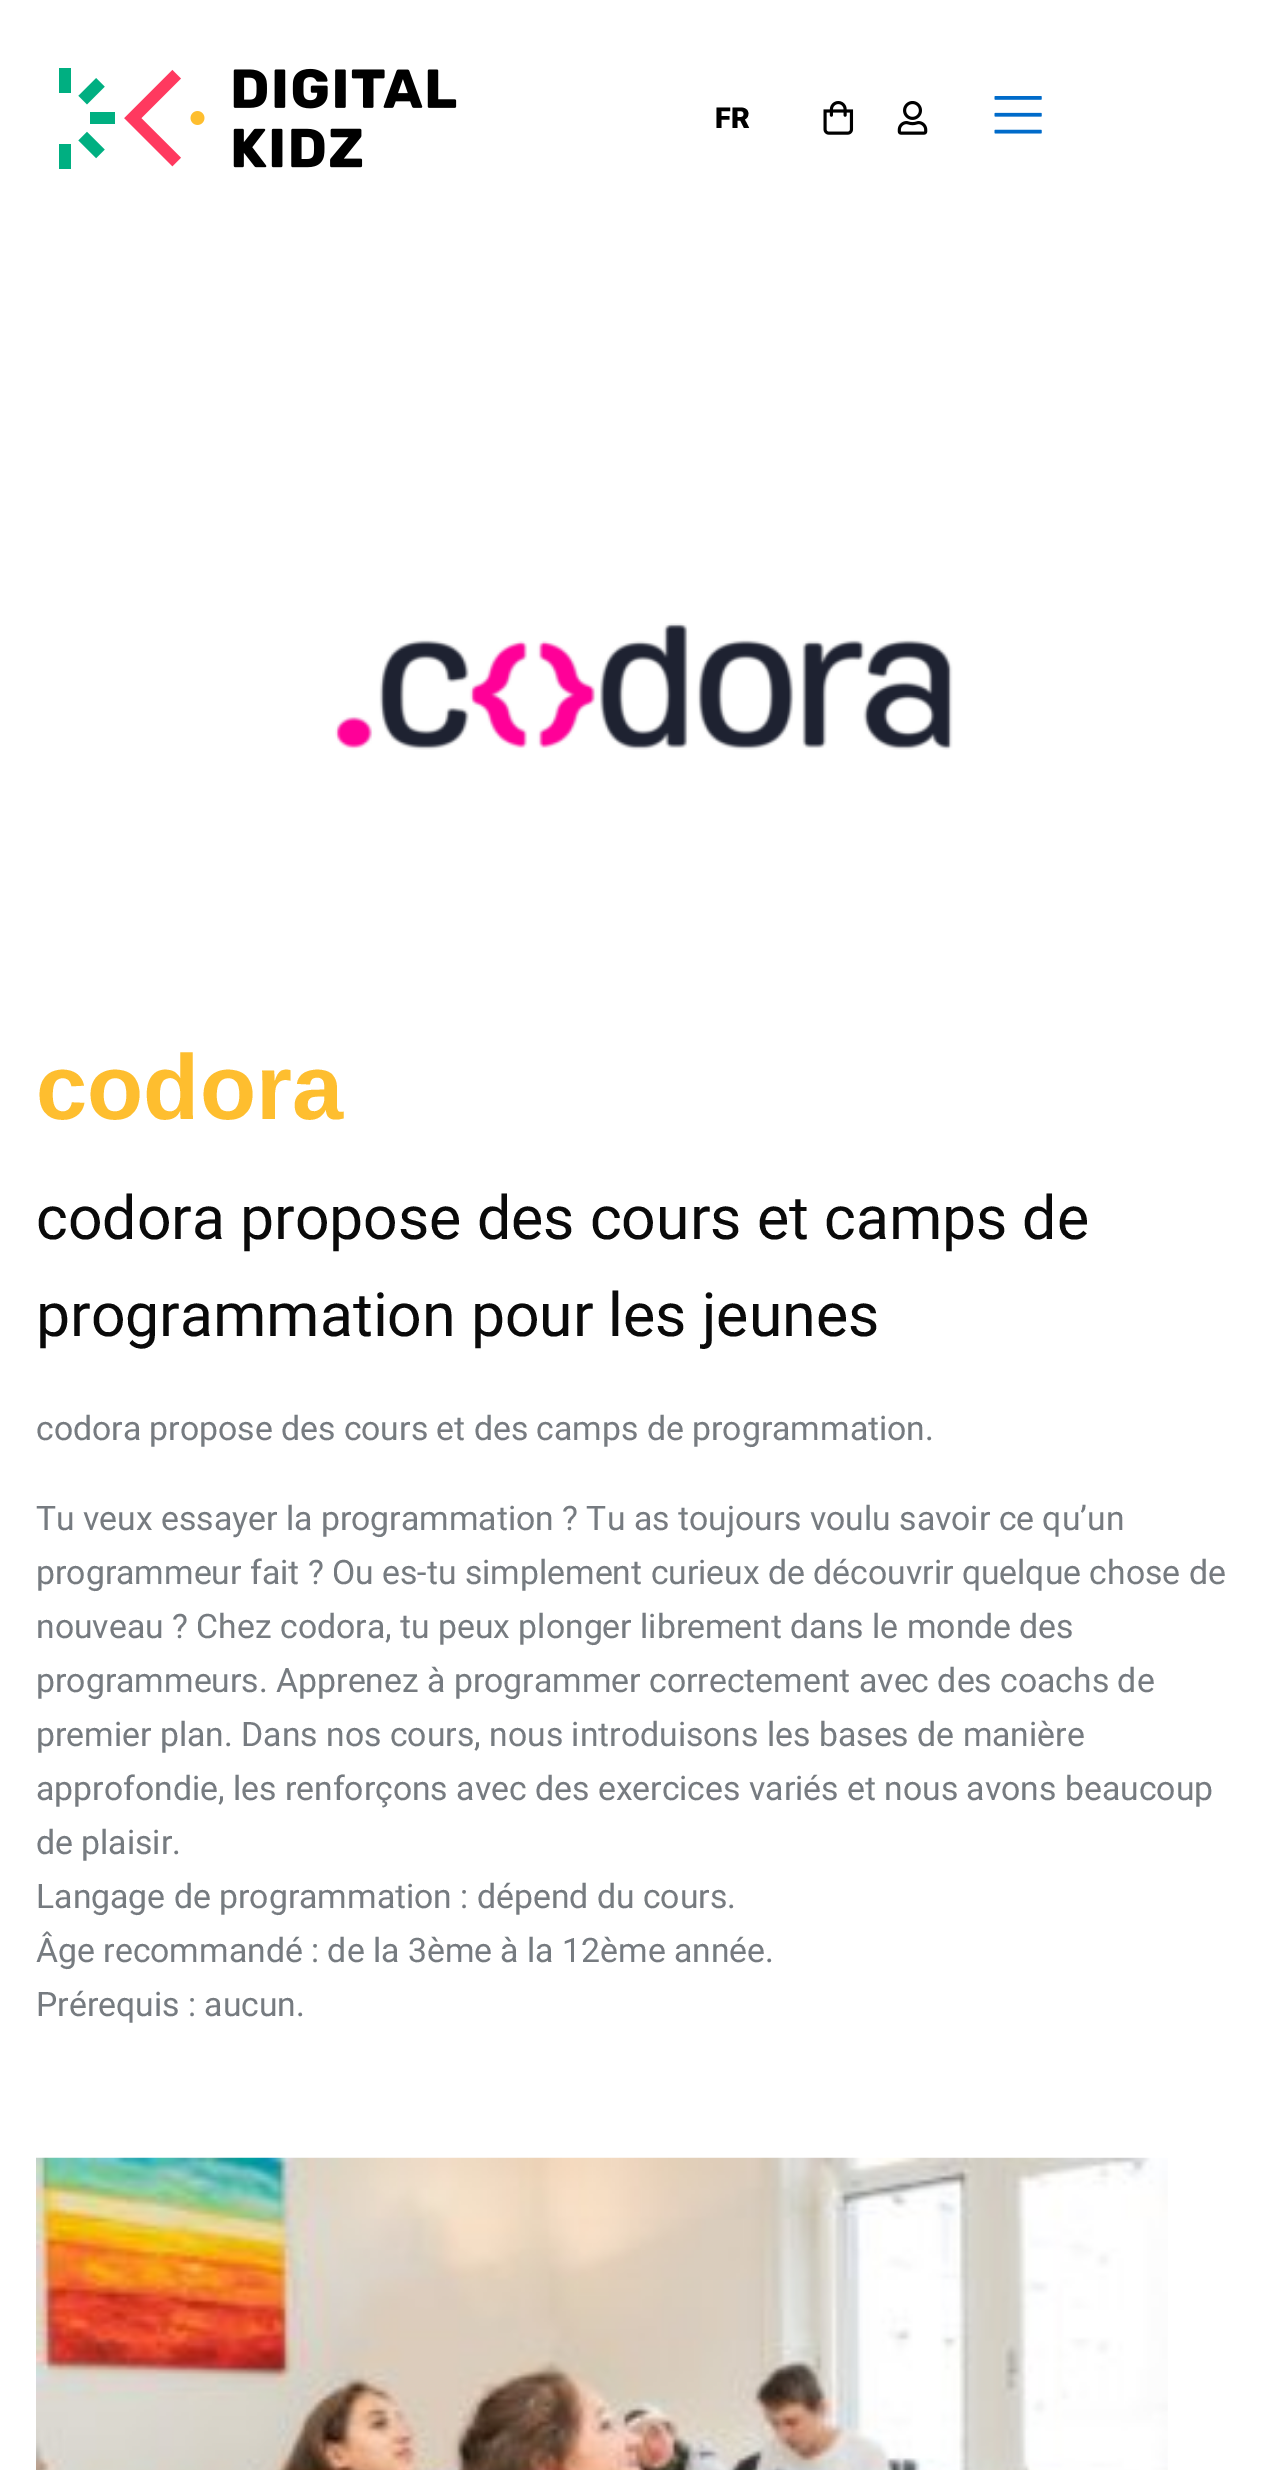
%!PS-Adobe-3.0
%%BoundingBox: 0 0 1286 2470
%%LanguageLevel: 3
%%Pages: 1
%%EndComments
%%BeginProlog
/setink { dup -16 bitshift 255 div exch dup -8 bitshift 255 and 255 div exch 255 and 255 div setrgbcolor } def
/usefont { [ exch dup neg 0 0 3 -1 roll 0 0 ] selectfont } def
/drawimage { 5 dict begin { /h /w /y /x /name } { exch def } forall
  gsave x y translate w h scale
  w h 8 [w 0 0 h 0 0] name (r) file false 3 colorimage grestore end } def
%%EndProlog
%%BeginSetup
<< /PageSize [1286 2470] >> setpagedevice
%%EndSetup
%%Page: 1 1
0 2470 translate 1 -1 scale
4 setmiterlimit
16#FFFFFF setink
0 0 1286 2470 rectfill
(img1.raw) 59 68 398 101 drawimage
/Roboto-Black 29 usefont
16#000000 setink
715 128 moveto (FR) show
(img2.raw) 823 101 31 34 drawimage
(img3.raw) 897 101 31 34 drawimage
(img4.raw) 994 96 48 38 drawimage
(img5.raw) 335 623 618 127 drawimage
/LiberationSans-Bold 92 usefont
16#FEBE2F setink
36 1119 moveto (codora) show
/Roboto-Regular 60.75 usefont
16#0A0A0A setink
36 1239 moveto (codora propose des cours et camps de) show
36 1336 moveto (programmation pour les jeunes) show
/Roboto-Regular 33.75 usefont
16#767B80 setink
[
    [(codora propose des cours et des camps de programmation.) 36 1440]
    [(Tu veux essayer la programmation ? Tu as toujours voulu savoir ce qu’un) 36 1530]
    [(programmeur fait ? Ou es-tu simplement curieux de découvrir quelque chose de) 36 1584]
    [(nouveau ? Chez codora, tu peux plonger librement dans le monde des) 36 1638]
    [(programmeurs. Apprenez à programmer correctement avec des coachs de) 36 1692]
    [(premier plan. Dans nos cours, nous introduisons les bases de manière) 36 1746]
    [(approfondie, les renforçons avec des exercices variés et nous avons beaucoup) 36 1800]
    [(de plaisir.) 36 1854]
    [(Langage de programmation : dépend du cours.) 36 1908]
    [(Âge recommandé : de la 3ème à la 12ème année.) 36 1962]
    [(Prérequis : aucun.) 36 2016]
] { aload pop moveto show } forall
(img6.raw) 36 2157 1132 313 drawimage
showpage
%%EOF
